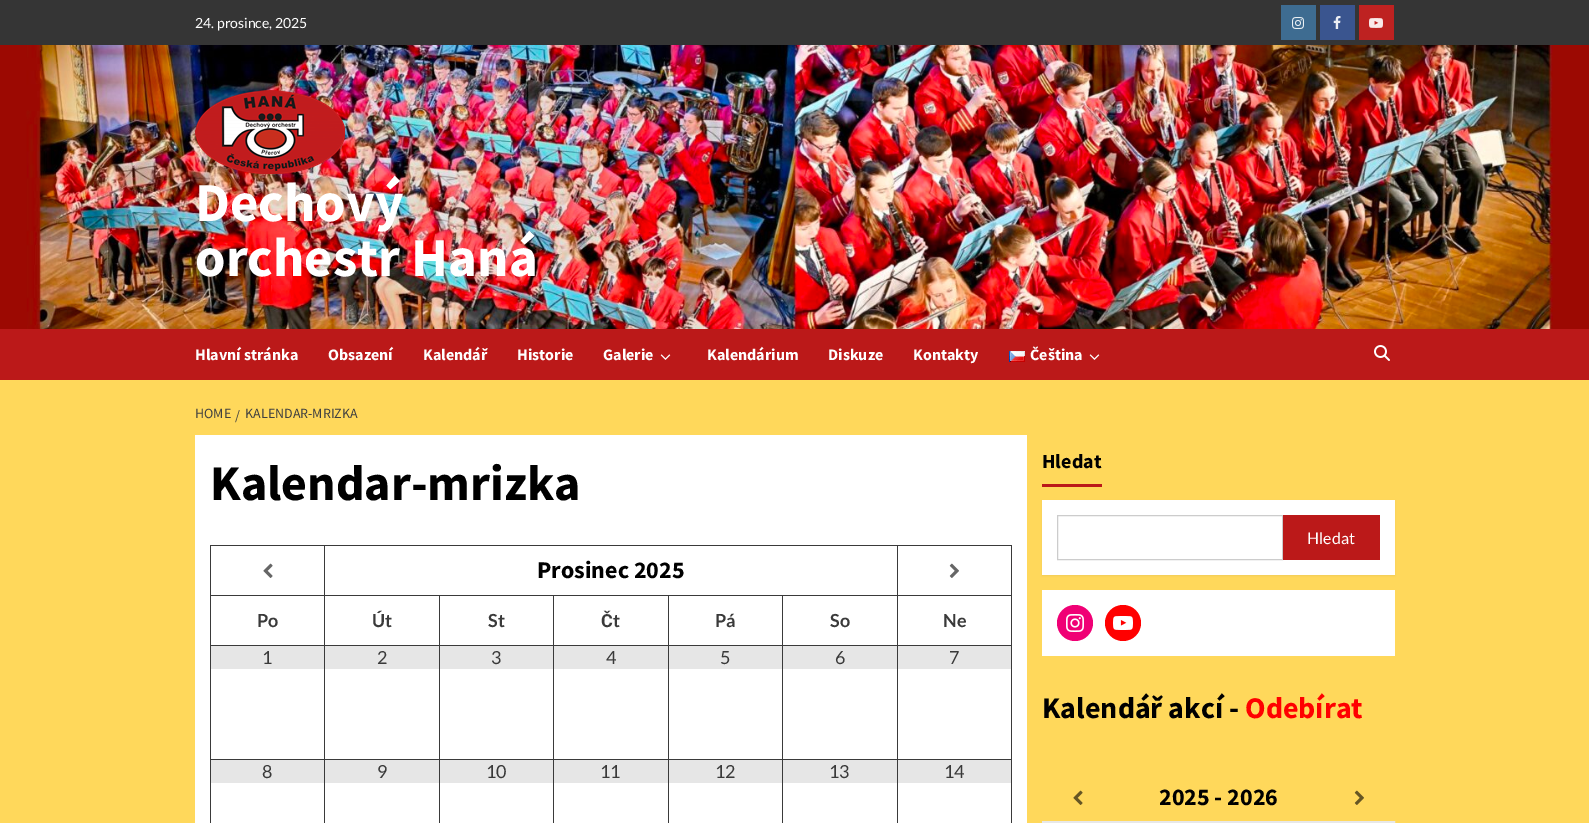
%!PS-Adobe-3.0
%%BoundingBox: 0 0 1589 823
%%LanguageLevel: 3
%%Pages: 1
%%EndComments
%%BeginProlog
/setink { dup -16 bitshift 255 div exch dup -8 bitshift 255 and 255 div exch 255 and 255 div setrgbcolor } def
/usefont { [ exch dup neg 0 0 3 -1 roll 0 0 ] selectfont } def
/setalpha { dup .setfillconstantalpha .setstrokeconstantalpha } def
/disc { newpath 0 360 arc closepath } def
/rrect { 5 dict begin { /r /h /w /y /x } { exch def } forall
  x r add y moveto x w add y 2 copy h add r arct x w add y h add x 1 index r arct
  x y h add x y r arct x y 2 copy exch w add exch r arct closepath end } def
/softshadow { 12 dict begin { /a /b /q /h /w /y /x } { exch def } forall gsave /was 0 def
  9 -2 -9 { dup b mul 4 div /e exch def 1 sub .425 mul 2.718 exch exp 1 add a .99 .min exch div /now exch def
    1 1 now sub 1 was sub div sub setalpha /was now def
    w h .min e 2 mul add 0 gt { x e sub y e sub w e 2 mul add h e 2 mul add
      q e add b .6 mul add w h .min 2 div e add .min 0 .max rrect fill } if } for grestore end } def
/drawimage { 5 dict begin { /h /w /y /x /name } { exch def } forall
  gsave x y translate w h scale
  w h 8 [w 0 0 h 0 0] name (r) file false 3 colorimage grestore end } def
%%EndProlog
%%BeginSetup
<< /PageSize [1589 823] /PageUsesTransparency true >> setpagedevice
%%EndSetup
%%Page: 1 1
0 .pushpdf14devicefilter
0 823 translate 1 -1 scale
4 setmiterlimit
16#FFD85B setink
0 0 1589 823 rectfill
16#353535 setink
0 0 1589 45 rectfill
/Lato-Regular 14 usefont
16#FFFFFF setink
195 28 moveto (24. prosince, 2025) show
16#3E6C91 setink
1281 5 35 35 rectfill
(img1.raw) 1292 17 12 12 drawimage
16#3A558F setink
1320 5 35 35 rectfill
(img2.raw) 1333 16 8 13 drawimage
16#BE2221 setink
1359 5 35 35 rectfill
(img3.raw) 1369 18 14 10 drawimage
(img4.raw) 0 45 1589 284 drawimage
(img5.raw) 195 90 150 84 drawimage
/SourceSansPro-Bold 55 usefont
16#FFFFFF setink
195 221 moveto (Dechový) show
195 276 moveto (orchestr Haná) show
16#BB1919 setink
0 329 1589 51 rectfill
/SourceSansPro-Bold 16 usefont
16#FFFFFF setink
[
    [(Hlavní stránka) 195 360]
    [(Obsazení) 328 360]
    [(Kalendář) 423 360]
    [(Historie) 517 360]
    [(Galerie) 603 360]
] { aload pop moveto show } forall
(img6.raw) 660 354 11 6 drawimage
[
    [(Kalendárium) 707 360]
    [(Diskuze) 828 360]
    [(Kontakty) 913 360]
] { aload pop moveto show } forall
(img7.raw) 1009 351 16 11 drawimage
1030 360 moveto (Čeština) show
(img6.raw) 1089 354 11 6 drawimage
(img8.raw) 1374 345 16 16 drawimage
/SourceSansPro-Regular 14 usefont
16#404040 setink
[
    [(HOME) 195 418]
    [(/) 235 420]
    [(KALENDAR-MRIZKA) 245 418]
] { aload pop moveto show } forall
16#FFFFFF setink
195 435 832 388 rectfill
/SourceSansPro-Bold 50 usefont
16#000000 setink
210 500 moveto (Kalendar-mrizka) show
[
    [897 545 115 1 16#3A3A3A]
    [897 595 115 1 16#3A3A3A]
    [897 645 115 1 16#3A3A3A]
    [897 759 115 1 16#3A3A3A]
    [897 759 1 64 16#3A3A3A]
    [782 759 116 1 16#3A3A3A]
    [897 645 1 115 16#3A3A3A]
    [782 645 116 1 16#3A3A3A]
    [897 595 1 51 16#3A3A3A]
    [782 595 116 1 16#3A3A3A]
    [897 545 1 51 16#3A3A3A]
    [324 545 574 1 16#3A3A3A]
    [782 759 1 64 16#3A3A3A]
    [668 759 115 1 16#3A3A3A]
    [782 645 1 115 16#3A3A3A]
    [668 645 115 1 16#3A3A3A]
    [782 595 1 51 16#3A3A3A]
    [668 595 115 1 16#3A3A3A]
    [668 759 1 64 16#3A3A3A]
    [553 759 116 1 16#3A3A3A]
    [668 645 1 115 16#3A3A3A]
    [553 645 116 1 16#3A3A3A]
    [668 595 1 51 16#3A3A3A]
    [553 595 116 1 16#3A3A3A]
    [553 759 1 64 16#3A3A3A]
    [439 759 115 1 16#3A3A3A]
    [553 645 1 115 16#3A3A3A]
    [439 645 115 1 16#3A3A3A]
    [553 595 1 51 16#3A3A3A]
    [439 595 115 1 16#3A3A3A]
    [439 759 1 64 16#3A3A3A]
    [324 759 116 1 16#3A3A3A]
    [439 645 1 115 16#3A3A3A]
    [324 645 116 1 16#3A3A3A]
    [439 595 1 51 16#3A3A3A]
    [324 595 116 1 16#3A3A3A]
    [324 759 1 64 16#3A3A3A]
    [210 759 115 1 16#3A3A3A]
    [324 645 1 115 16#3A3A3A]
    [210 645 115 1 16#3A3A3A]
    [324 595 1 51 16#3A3A3A]
    [210 595 115 1 16#3A3A3A]
    [324 545 1 51 16#3A3A3A]
    [210 545 115 1 16#3A3A3A]
    [210 759 1 64 16#3A3A3A]
    [210 645 1 115 16#3A3A3A]
    [210 595 1 51 16#3A3A3A]
    [210 545 1 51 16#3A3A3A]
] { aload pop setink rectfill } forall
(img9.raw) 263 563 10 15 drawimage
/SourceSansPro-Bold 24 usefont
16#000000 setink
537 578 moveto (Prosinec 2025) show
[
    [1011 759 1 64 16#3A3A3A]
    [1011 645 1 115 16#3A3A3A]
    [1011 595 1 51 16#3A3A3A]
    [1011 545 1 51 16#3A3A3A]
] { aload pop setink rectfill } forall
(img10.raw) 949 563 10 15 drawimage
/Lato-Bold 18 usefont
[
    [(Po) 257 627]
    [(Út) 372 627]
    [(St) 488 627]
] { aload pop moveto show } forall
/Roboto-Bold 18 usefont
601 627 moveto (Č) show
/Lato-Bold 18 usefont
[
    [(t) 613 627]
    [(Pá) 715 627]
    [(So) 830 627]
    [(Ne) 943 627]
] { aload pop moveto show } forall
16#E6E6E6 setink
211 646 113 23 rectfill
/Lato-Regular 18 usefont
16#3A3A3A setink
262 664 moveto (1) show
16#E6E6E6 setink
325 646 114 23 rectfill
16#3A3A3A setink
377 664 moveto (2) show
16#E6E6E6 setink
440 646 113 23 rectfill
16#3A3A3A setink
491 664 moveto (3) show
16#E6E6E6 setink
554 646 114 23 rectfill
16#3A3A3A setink
606 664 moveto (4) show
16#E6E6E6 setink
669 646 113 23 rectfill
16#3A3A3A setink
720 664 moveto (5) show
16#E6E6E6 setink
783 646 114 23 rectfill
16#3A3A3A setink
835 664 moveto (6) show
16#E6E6E6 setink
898 646 113 23 rectfill
16#3A3A3A setink
949 664 moveto (7) show
16#E6E6E6 setink
211 760 113 23 rectfill
16#3A3A3A setink
262 778 moveto (8) show
16#E6E6E6 setink
325 760 114 23 rectfill
16#3A3A3A setink
377 778 moveto (9) show
16#E6E6E6 setink
440 760 113 23 rectfill
16#3A3A3A setink
486 778 moveto (10) show
16#E6E6E6 setink
554 760 114 23 rectfill
16#3A3A3A setink
600 778 moveto (11) show
16#E6E6E6 setink
669 760 113 23 rectfill
16#3A3A3A setink
715 778 moveto (12) show
16#E6E6E6 setink
783 760 114 23 rectfill
16#3A3A3A setink
829 778 moveto (13) show
16#E6E6E6 setink
898 760 113 23 rectfill
16#3A3A3A setink
944 778 moveto (14) show
/SourceSansPro-Bold 20 usefont
16#000000 setink
1042 468 moveto (Hledat) show
16#BB1919 setink
1042 484 60 3 rectfill
16#000000 setink
1042 501 353 75 0 1 0.05 softshadow
16#FFFFFF setink
1042 500 353 75 rectfill
16#CCCCCC setink
1057.5 515.5 225 44 rectstroke
16#BB1919 setink
1283 515 97 45 rectfill
/Lato-Regular 16 usefont
16#FFFFFF setink
1307 544 moveto (Hledat) show
1042 590 353 66 rectfill
16#F00075 setink
1075 623 18 disc fill
(img11.raw) 1066 614 18 18 drawimage
16#FF0000 setink
1123 623 18 disc fill
(img12.raw) 1113 616 20 14 drawimage
/SourceSansPro-Bold 30 usefont
16#000000 setink
1042 718 moveto (Kalendář akcí -) show
16#FF0000 setink
1245 718 moveto (Odebírat) show
(img13.raw) 1073 790 10 15 drawimage
/SourceSansPro-Bold 24 usefont
16#000000 setink
1159 805 moveto (2025 - 2026) show
(img14.raw) 1354 790 10 15 drawimage
16#E8E8E8 setink
2 setlinewidth
1043 822 351 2 rectstroke
.poppdf14devicefilter showpage
%%EOF
